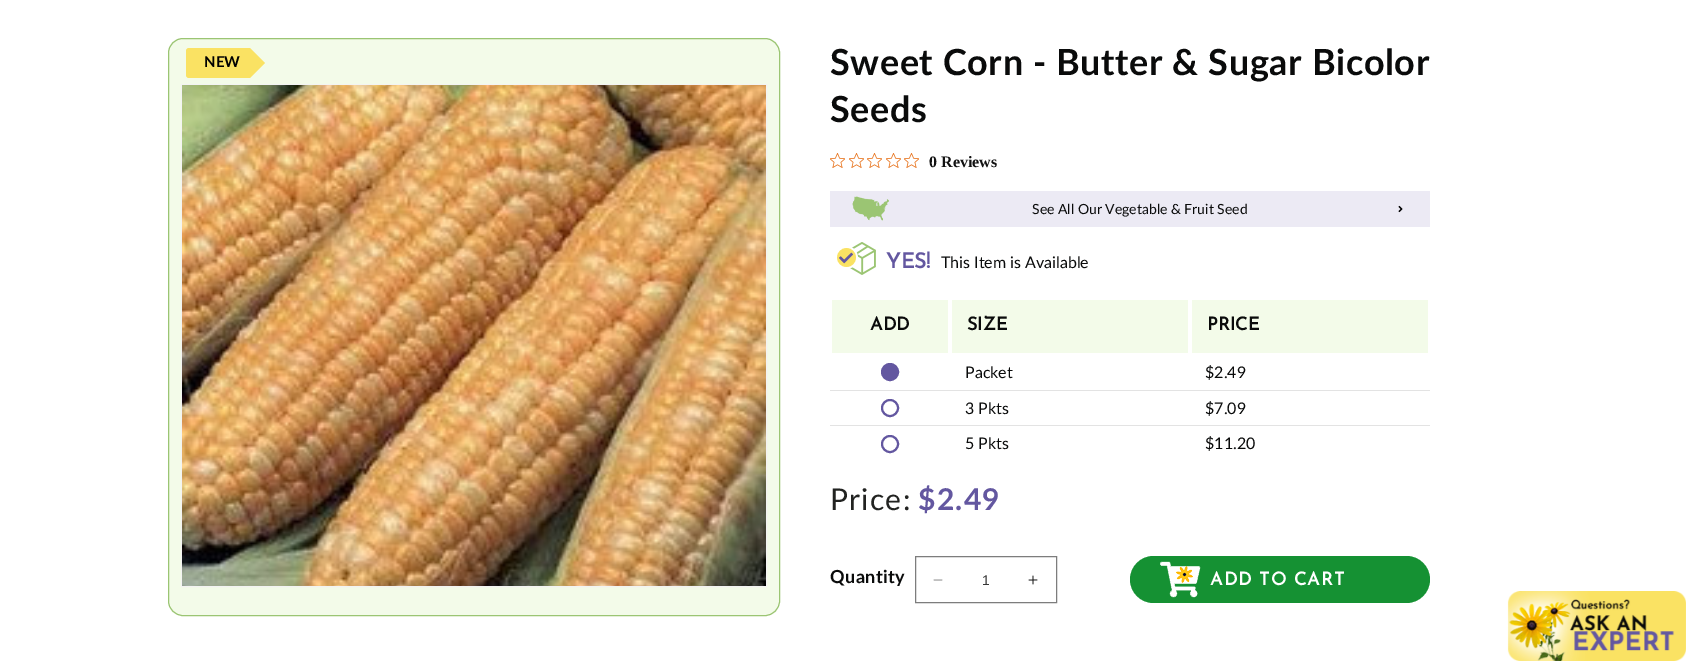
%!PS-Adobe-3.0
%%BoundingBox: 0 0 1696 671
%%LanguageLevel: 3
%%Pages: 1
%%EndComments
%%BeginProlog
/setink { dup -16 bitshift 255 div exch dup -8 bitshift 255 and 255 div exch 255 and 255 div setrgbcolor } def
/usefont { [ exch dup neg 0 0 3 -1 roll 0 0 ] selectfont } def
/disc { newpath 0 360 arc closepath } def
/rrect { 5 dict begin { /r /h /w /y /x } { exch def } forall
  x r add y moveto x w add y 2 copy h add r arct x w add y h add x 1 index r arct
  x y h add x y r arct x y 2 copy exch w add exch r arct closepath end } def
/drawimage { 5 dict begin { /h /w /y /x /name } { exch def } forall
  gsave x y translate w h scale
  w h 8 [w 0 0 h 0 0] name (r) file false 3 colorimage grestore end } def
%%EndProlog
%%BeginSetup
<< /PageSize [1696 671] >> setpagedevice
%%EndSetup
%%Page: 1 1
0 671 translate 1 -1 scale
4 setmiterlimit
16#FFFFFF setink
0 0 1696 671 rectfill
16#F3FBE9 setink
168.5 38.5 611 577 14.5 rrect gsave fill grestore
16#9BC573 setink
stroke
16#FAE263 setink
189 48 moveto 250 48 lineto 250 78 lineto 189 78 lineto 187.5 78 186 76.5 186 75 curveto 186 51 lineto 186 49.5 187.5 48 189 48 curveto closepath fill
/Lato-Bold 15 usefont
16#000000 setink
204 67 moveto (NEW) show
16#FAE263 setink
250 78 moveto 250 48 lineto 265 63 lineto closepath fill
16#F3F3F3 setink
181.5 84.5 585 502 rectstroke
(img1.raw) 182 85 584 501 drawimage
/Lato-Bold 36 usefont
16#0A0B0B setink
830 75 moveto 0.6 0 (Sweet Corn - Butter & Sugar Bicolor) ashow
830 122 moveto 0.6 0 (Seeds) ashow
(img2.raw) 830 153 15 15 drawimage
(img2.raw) 849 153 15 15 drawimage
(img2.raw) 867 153 15 15 drawimage
(img2.raw) 886 153 15 15 drawimage
(img2.raw) 904 153 15 15 drawimage
/LiberationSerif-Bold 16 usefont
16#121212 setink
929 167 moveto (0 Reviews) show
16#ECEAF4 setink
830 191 600 36 rectfill
(img3.raw) 852 196 37 25 drawimage
/Lato-Regular 14 usefont
16#0A0B0B setink
1032 214 moveto (See All Our Vegetable & Fruit Seed) show
(img4.raw) 1398 205 5 8 drawimage
(img5.raw) 837 242 39 33 drawimage
/JosefinSans-Bold 21 usefont
16#6357A0 setink
886 268 moveto (YES!) show
/Lato-Regular 16 usefont
16#0A0B0B setink
941 268 moveto (This Item is Available) show
16#F3FBE9 setink
832 300 116 53 rectfill
/JosefinSans-Bold 18 usefont
16#0A0B0B setink
870 330 moveto (ADD) show
16#F3FBE9 setink
952 300 236 53 rectfill
16#0A0B0B setink
967 330 moveto (SIZE) show
16#F3FBE9 setink
1192 300 236 53 rectfill
16#0A0B0B setink
1207 330 moveto (PRICE) show
16#6357A0 setink
890 372 8 disc gsave fill grestore
2 setlinewidth
stroke
/Lato-Regular 16 usefont
16#0A0B0B setink
965 378 moveto (Packet) show
1205 378 moveto ($2.49) show
16#E3E3E3 setink
830 390 600 1 rectfill
16#6357A0 setink
890 408 8 disc stroke
16#0A0B0B setink
965 414 moveto (3 Pkts) show
1205 414 moveto ($7.09) show
16#E3E3E3 setink
830 425 600 1 rectfill
16#6357A0 setink
890 444 8 disc stroke
16#0A0B0B setink
965 449 moveto (5 Pkts) show
1205 449 moveto ($11.20) show
/Lato-Regular 30 usefont
16#222321 setink
830 510 moveto 1.25 0 (Price:) ashow
/Lato-Bold 30 usefont
16#6357A0 setink
918 510 moveto 1.25 0 ($2.49) ashow
/Lato-Bold 18 usefont
16#0A0B0B setink
830 583 moveto 0.5 0 (Quantity) ashow
(img6.raw) 933 579 10 2 drawimage
(img7.raw) 1028 575 10 10 drawimage
16#7D7D7D setink
1 setlinewidth
915.5 556.5 141 46 rectstroke
/LiberationSans-Regular 14 usefont
16#363636 setink
982 585 moveto (1) show
16#159133 setink
1130 556 300 47 23.5 rrect fill
(img8.raw) 1160 561 41 37 drawimage
/JosefinSans-Bold 18 usefont
16#FFFFFF setink
1210 585 moveto 1 0 (ADD TO CART) ashow
(img9.raw) 1507 591 179 70 drawimage
showpage
%%EOF
